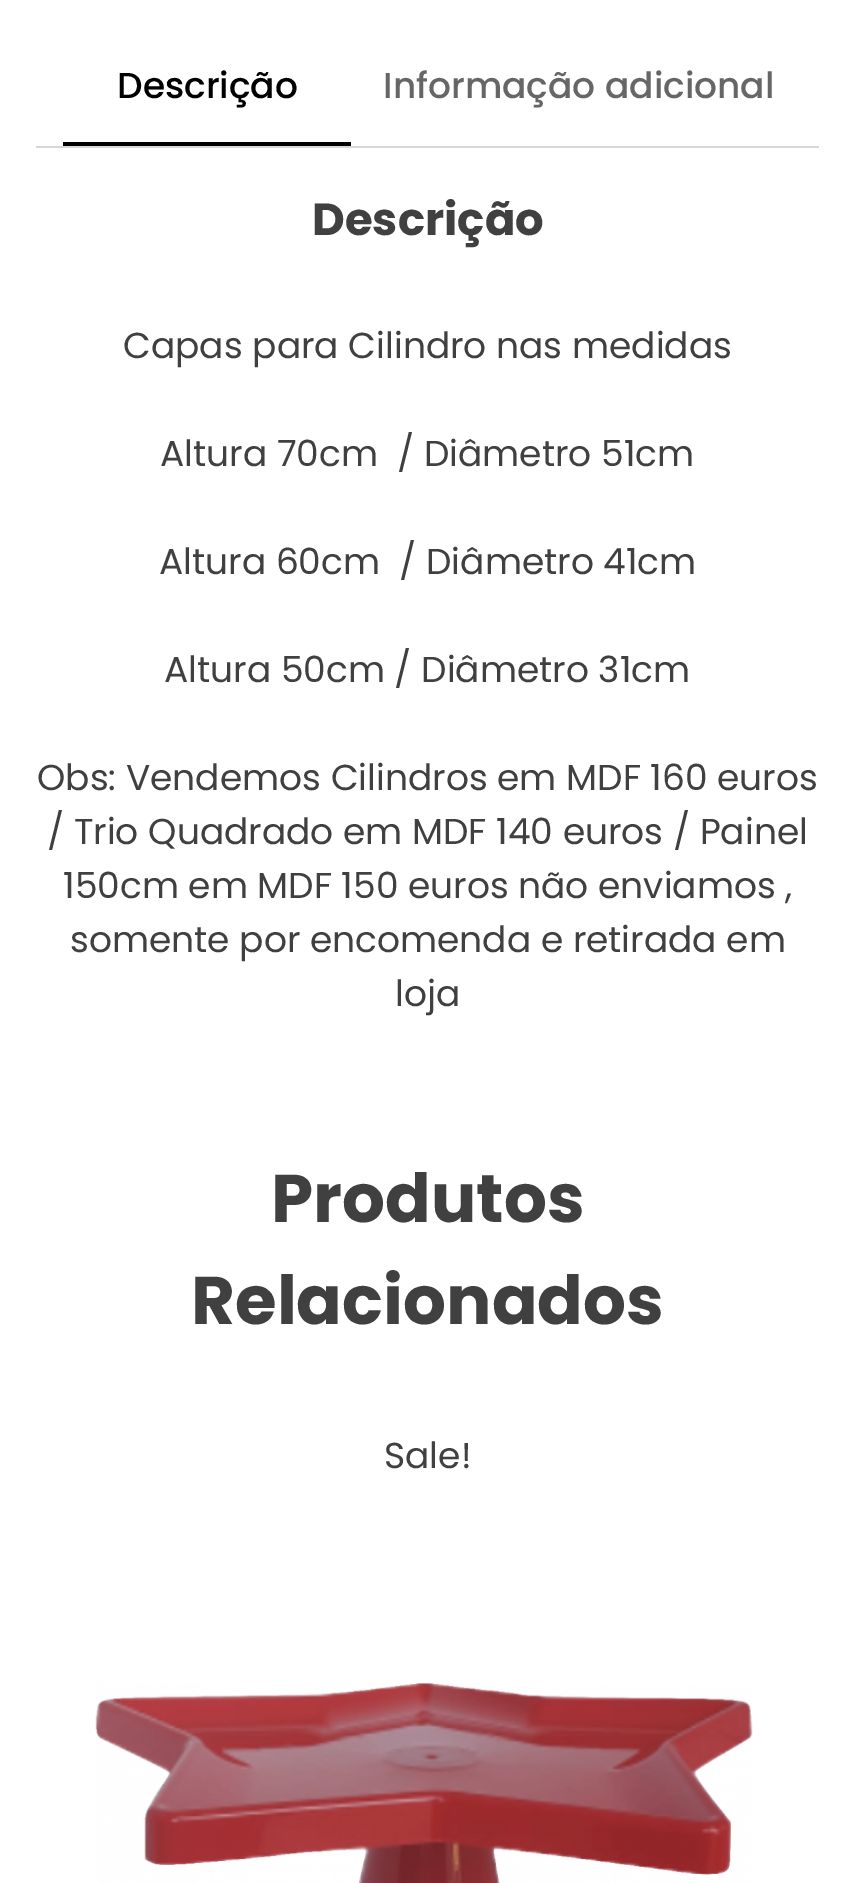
%!PS-Adobe-3.0
%%BoundingBox: 0 0 854 1883
%%LanguageLevel: 3
%%Pages: 1
%%EndComments
%%BeginProlog
/setink { dup -16 bitshift 255 div exch dup -8 bitshift 255 and 255 div exch 255 and 255 div setrgbcolor } def
/usefont { [ exch dup neg 0 0 3 -1 roll 0 0 ] selectfont } def
/drawimage { 5 dict begin { /h /w /y /x /name } { exch def } forall
  gsave x y translate w h scale
  w h 8 [w 0 0 h 0 0] name (r) file false 3 colorimage grestore end } def
%%EndProlog
%%BeginSetup
<< /PageSize [854 1883] >> setpagedevice
%%EndSetup
%%Page: 1 1
0 1883 translate 1 -1 scale
4 setmiterlimit
16#FFFFFF setink
0 0 854 1883 rectfill
16#D7D7D7 setink
36 146 783 2 rectfill
16#000000 setink
63 142 288 4 rectfill
/Poppins-Medium 36 usefont
117 98 moveto (Descrição) show
16#666666 setink
383 98 moveto (Informação adicional) show
/Poppins-Bold 45 usefont
16#404040 setink
312 235 moveto (Descrição) show
/Poppins-Regular 36 usefont
[
    [(Capas para Cilindro nas medidas) 123 358]
    [(Altura 70cm  / Diâmetro 51cm) 160 466]
    [(Altura 60cm  / Diâmetro 41cm) 159 574]
    [(Altura 50cm / Diâmetro 31cm) 164 682]
    [(Obs: Vendemos Cilindros em MDF 160 euros) 37 790]
    [(/ Trio Quadrado em MDF 140 euros / Painel) 47 844]
    [(150cm em MDF 150 euros não enviamos ,) 63 898]
    [(somente por encomenda e retirada em) 70 952]
    [(loja) 395 1006]
] { aload pop moveto show } forall
/Poppins-Bold 67.5 usefont
271 1222 moveto (Produtos) show
191 1324 moveto (Relacionados) show
/Poppins-Regular 36 usefont
384 1468 moveto (Sale!) show
(img1.raw) 95 1682 658 201 drawimage
showpage
%%EOF
